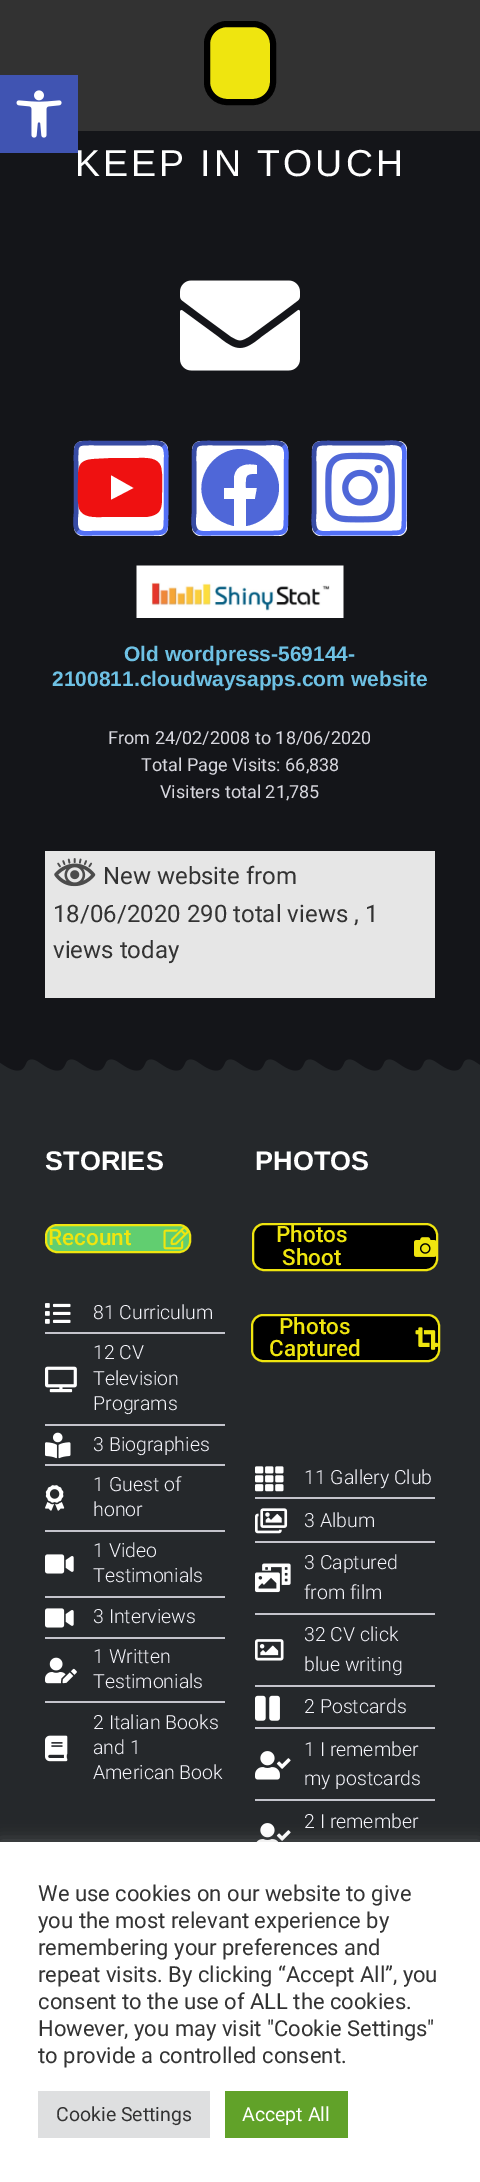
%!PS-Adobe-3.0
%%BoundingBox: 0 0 480 2182
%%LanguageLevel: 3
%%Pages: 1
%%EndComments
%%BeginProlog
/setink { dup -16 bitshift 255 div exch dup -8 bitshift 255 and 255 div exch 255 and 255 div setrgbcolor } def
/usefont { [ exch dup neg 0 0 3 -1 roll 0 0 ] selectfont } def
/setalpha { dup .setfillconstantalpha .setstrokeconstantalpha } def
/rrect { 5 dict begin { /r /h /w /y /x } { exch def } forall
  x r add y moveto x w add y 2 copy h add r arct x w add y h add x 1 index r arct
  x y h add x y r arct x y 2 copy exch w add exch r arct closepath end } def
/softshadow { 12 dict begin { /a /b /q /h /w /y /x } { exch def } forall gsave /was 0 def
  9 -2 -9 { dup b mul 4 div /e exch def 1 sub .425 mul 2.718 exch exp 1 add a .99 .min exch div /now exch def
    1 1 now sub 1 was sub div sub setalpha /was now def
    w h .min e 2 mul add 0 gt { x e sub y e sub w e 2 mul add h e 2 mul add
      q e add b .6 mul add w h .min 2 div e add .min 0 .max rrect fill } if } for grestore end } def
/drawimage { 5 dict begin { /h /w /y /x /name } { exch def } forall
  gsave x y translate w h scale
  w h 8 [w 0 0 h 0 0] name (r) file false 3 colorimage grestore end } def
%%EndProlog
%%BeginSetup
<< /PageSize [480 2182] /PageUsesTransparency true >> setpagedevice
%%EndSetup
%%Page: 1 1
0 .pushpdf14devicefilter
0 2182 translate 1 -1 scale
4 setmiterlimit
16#141519 setink
0 0 480 2182 rectfill
16#323232 setink
0 0 480 131 rectfill
16#EFE50F setink
207 24 66 78 20 rrect gsave fill grestore
16#000000 setink
6 setlinewidth
stroke
/LiberationSans-Regular 37.5 usefont
16#FFFFFF setink
75 176 moveto 3 0 (KEEP IN TOUCH) ashow
16#4054B2 setink
0 75 78 78 rectfill
(img1.raw) 16 90 46 48 drawimage
(img2.raw) 180 280 120 91 drawimage
16#FFFFFF setink
74 441 94 95 9 rrect fill
16#5370F6 setink
4.5 setlinewidth
163.5 445.5 moveto 167.5 449.5 166 459.5 166 463 curveto 166 513.5 lineto 166 534.5 167 533 146 533 curveto 95.5 533 lineto 92 533 82 535 78 531 curveto stroke
16#374BA4 setink
78 531 moveto 74 527 76 517 76 513.5 curveto 76 463 lineto 76 442 74.5 443 95.5 443 curveto 146 443 lineto 149.5 443 159.5 441.5 163.5 445.5 curveto stroke
16#EF1111 setink
161 467 moveto 163 476 162 485 162 494 curveto 162 508 162 515 146 517 curveto 127 517 lineto 102 517 lineto 95 517 82 518 79 508 curveto 77 500 78 490 78 481 curveto 78 467 78 460 94 459 curveto 113 458 lineto 138 458 lineto 146 458 158 457 161 467 curveto closepath 111 500 moveto 134 488 lineto 111 475 lineto closepath fill
16#FFFFFF setink
192 441 96 95 9 rrect fill
16#5370F6 setink
283.5 445.5 moveto 288 449.5 286 459.5 286 463 curveto 286 513.5 lineto 286 534.5 287 533 265.5 533 curveto 214.5 533 lineto 211 533 200.5 535 196.5 531 curveto stroke
16#374BA4 setink
196.5 531 moveto 192 527 194 517 194 513.5 curveto 194 463 lineto 194 442 193 443 214.5 443 curveto 265.5 443 lineto 269 443 279.5 441.5 283.5 445.5 curveto stroke
16#4F67D8 setink
279 488 moveto 279 506 265 523 246 526 curveto 246 499 lineto 255 499 lineto 257 488 lineto 246 488 lineto 246 476 245 474 257 474 curveto 257 465 lineto 248 463 236 464 234 476 curveto 234 488 lineto 224 488 lineto 224 499 lineto 234 499 lineto 234 526 lineto 225 524 217 520 211 513 curveto 182 479 225 431 261 456 curveto 272 463 279 475 279 488 curveto closepath fill
16#FFFFFF setink
312 441 95 95 9 rrect fill
16#5370F6 setink
402 445.5 moveto 406 449.5 404 459.5 404 463 curveto 404 513.5 lineto 404 534.5 405.5 533 384.5 533 curveto 334 533 lineto 330.5 533 320.5 535 316.5 531 curveto stroke
16#374BA4 setink
316.5 531 moveto 312.5 527 314 517 314 513.5 curveto 314 463 lineto 314 442 313 443 334 443 curveto 384.5 443 lineto 388 443 398 441.5 402 445.5 curveto stroke
(img3.raw) 325 452 70 71 drawimage
(img4.raw) 136 565 208 53 drawimage
/LiberationSans-Bold 21 usefont
16#6EC1E4 setink
124 661 moveto (Old wordpress-569144-) show
52 686 moveto (2100811.cloudwaysapps.com website) show
/Roboto-Regular 18 usefont
16#D8D8DF setink
[
    [(From 24/02/2008 to 18/06/2020) 108 744]
    [(Total Page Visits: 66,838) 141 771]
    [(Visiters total 21,785) 160 798]
] { aload pop moveto show } forall
16#E6E6E6 setink
45 851 390 147 rectfill
(img5.raw) 54 858 42 29 drawimage
/Roboto-Regular 24 usefont
16#333333 setink
[
    [(New website from) 103 884]
    [(18/06/2020 290 total views , 1) 53 922]
    [(views today) 53 958]
] { aload pop moveto show } forall
16#25282B setink
0 1059 480 783 rectfill
(img6.raw) 0 1058 480 13 drawimage
/LiberationSans-Bold 27 usefont
16#FFFFFF setink
45 1170 moveto (STORIES) show
16#61CE70 setink
46 1225 144 27 11 rrect gsave fill grestore
16#EFE50F setink
2 setlinewidth
stroke
/Roboto-Medium 22.5 usefont
48 1245 moveto (Recount) show
(img7.raw) 163 1227 26 23 drawimage
(img8.raw) 45 1303 26 21 drawimage
/Roboto-Light 19.5 usefont
16#F5F5FB setink
93 1319 moveto (81 Curriculum) show
16#C4C4CC setink
45 1332 180 2 rectfill
(img9.raw) 45 1366 32 27 drawimage
16#F5F5FB setink
[
    [(12 CV) 93 1359]
    [(Television) 93 1385]
    [(Programs) 93 1410]
] { aload pop moveto show } forall
16#C4C4CC setink
45 1424 180 2 rectfill
(img10.raw) 45 1432 26 27 drawimage
16#F5F5FB setink
93 1451 moveto (3 Biographies) show
16#C4C4CC setink
45 1464 180 2 rectfill
(img11.raw) 45 1485 20 26 drawimage
16#F5F5FB setink
93 1491 moveto (1 Guest of) show
93 1516 moveto (honor) show
16#C4C4CC setink
45 1530 180 2 rectfill
(img12.raw) 45 1554 29 20 drawimage
16#F5F5FB setink
93 1557 moveto (1 Video) show
93 1582 moveto (Testimonials) show
16#C4C4CC setink
45 1596 180 2 rectfill
(img12.raw) 45 1608 29 20 drawimage
16#F5F5FB setink
93 1623 moveto (3 Interviews) show
16#C4C4CC setink
45 1637 180 2 rectfill
(img13.raw) 45 1657 32 27 drawimage
16#F5F5FB setink
93 1663 moveto (1 Written) show
93 1688 moveto (Testimonials) show
16#C4C4CC setink
45 1701 180 2 rectfill
(img14.raw) 45 1735 23 27 drawimage
16#F5F5FB setink
[
    [(2 Italian Books) 93 1729]
    [(and 1) 93 1754]
    [(American Book) 93 1779]
] { aload pop moveto show } forall
/LiberationSans-Bold 27 usefont
16#FFFFFF setink
255 1170 moveto (PHOTOS) show
16#000000 setink
253 1224 184 46 11 rrect gsave fill grestore
16#EFE50F setink
stroke
/Roboto-Medium 22.5 usefont
276 1242 moveto (Photos) show
282 1265 moveto (Shoot) show
(img15.raw) 414 1237 22 20 drawimage
16#000000 setink
252 1315 187 46 11 rrect gsave fill grestore
16#EFE50F setink
stroke
279 1334 moveto (Photos) show
269 1356 moveto (Captured) show
(img16.raw) 415 1327 23 23 drawimage
(img17.raw) 255 1466 29 26 drawimage
/Roboto-Light 19.5 usefont
16#F5F5FB setink
304 1484 moveto (11 Gallery Club) show
16#C4C4CC setink
255 1497 180 2 rectfill
(img18.raw) 255 1508 33 26 drawimage
16#F5F5FB setink
304 1527 moveto (3 Album) show
16#C4C4CC setink
255 1541 180 2 rectfill
(img19.raw) 255 1563 36 30 drawimage
16#F5F5FB setink
304 1569 moveto (3 Captured) show
304 1599 moveto (from film) show
16#C4C4CC setink
255 1613 180 2 rectfill
(img20.raw) 255 1639 29 22 drawimage
16#F5F5FB setink
304 1641 moveto (32 CV click) show
304 1671 moveto (blue writing) show
16#C4C4CC setink
255 1685 180 2 rectfill
(img21.raw) 255 1695 25 26 drawimage
16#F5F5FB setink
304 1713 moveto (2 Postcards) show
16#C4C4CC setink
255 1727 180 2 rectfill
(img22.raw) 255 1751 36 29 drawimage
16#F5F5FB setink
304 1756 moveto (1 I remember) show
304 1785 moveto (my postcards) show
16#C4C4CC setink
255 1799 180 2 rectfill
16#F5F5FB setink
304 1828 moveto (2 I remember) show
(img23.raw) 256 1823 35 19 drawimage
16#ACABAB setink
0 1841 480 340 0 7.5 0.3 softshadow
16#FFFFFF setink
0 1842 480 340 rectfill
/Roboto-Regular 22 usefont
16#333333 setink
[
    [(We use cookies on our website to give) 38 1901]
    [(you the most relevant experience by) 38 1928]
    [(remembering your preferences and) 38 1955]
    [(repeat visits. By clicking “Accept All”, you) 38 1982]
    [(consent to the use of ALL the cookies.) 38 2009]
    [(However, you may visit "Cookie Settings") 38 2036]
    [(to provide a controlled consent.) 38 2063]
] { aload pop moveto show } forall
16#DEDFE0 setink
38 2091 172 47 rectfill
/Roboto-Regular 19.5 usefont
16#333333 setink
56 2121 moveto (Cookie Settings) show
16#61A229 setink
225 2091 123 47 rectfill
16#FFFFFF setink
242 2121 moveto (Accept All) show
.poppdf14devicefilter showpage
%%EOF
